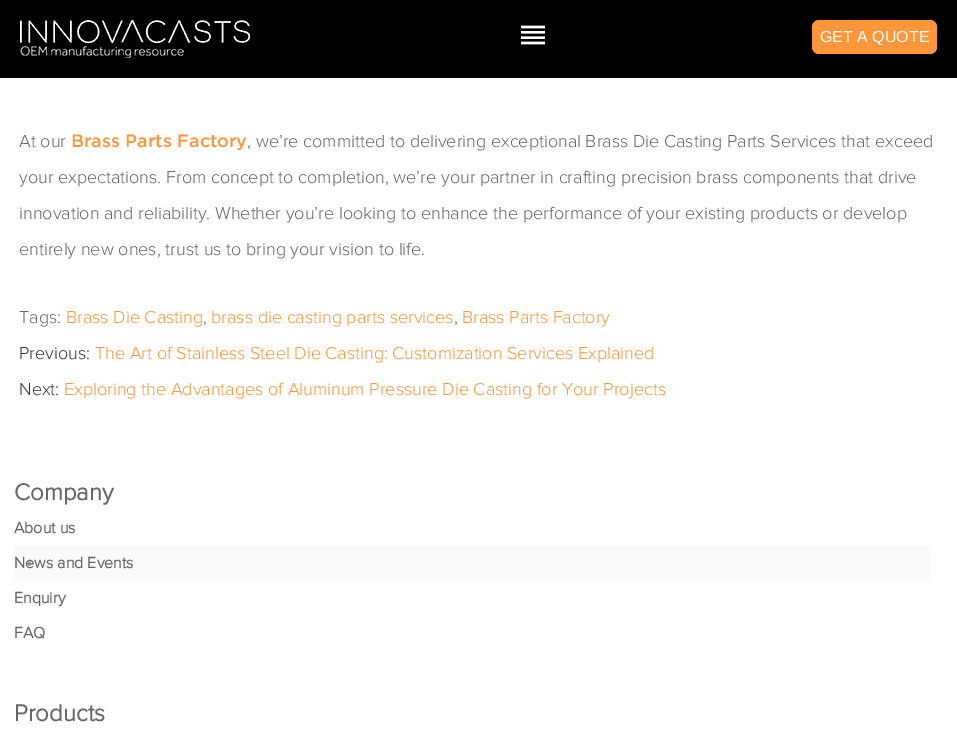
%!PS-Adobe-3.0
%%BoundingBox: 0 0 957 729
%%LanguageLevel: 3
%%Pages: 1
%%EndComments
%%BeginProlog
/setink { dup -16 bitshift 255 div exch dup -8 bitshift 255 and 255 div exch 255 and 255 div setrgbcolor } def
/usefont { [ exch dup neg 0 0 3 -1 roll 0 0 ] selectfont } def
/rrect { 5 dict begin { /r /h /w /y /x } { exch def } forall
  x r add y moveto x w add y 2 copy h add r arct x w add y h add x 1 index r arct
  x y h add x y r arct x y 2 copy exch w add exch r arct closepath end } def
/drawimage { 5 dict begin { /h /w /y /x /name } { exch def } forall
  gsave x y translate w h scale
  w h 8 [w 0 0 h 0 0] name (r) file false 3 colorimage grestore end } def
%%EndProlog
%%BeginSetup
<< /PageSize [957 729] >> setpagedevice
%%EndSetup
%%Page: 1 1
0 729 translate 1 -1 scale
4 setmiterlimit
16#FFFFFF setink
0 0 957 729 rectfill
16#000000 setink
0 0 957 78 rectfill
(img1.raw) 20 20 230 38 drawimage
(img2.raw) 521 25 24 20 drawimage
16#FF963A setink
812 20 125 34 7 rrect fill
/LiberationSans-Regular 16 usefont
16#FFFFFF setink
820 42 moveto (GET A QUOTE) show
/ProximaNova-Light 18 usefont
16#676766 setink
19 147 moveto (At our) show
/Gotham-Medium 18 usefont
16#FF963A setink
71 147 moveto (Brass Parts Factory) show
/ProximaNova-Light 18 usefont
16#676766 setink
[
    [(, we’re committed to delivering exceptional Brass Die Casting Parts Services that exceed) 247 147]
    [(your expectations. From concept to completion, we’re your partner in crafting precision brass components that drive) 19 183]
    [(innovation and reliability. Whether you’re looking to enhance the performance of your existing products or develop) 19 219]
    [(entirely new ones, trust us to bring your vision to life.) 19 255]
    [(Tags:) 19 323]
] { aload pop moveto show } forall
16#FF963A setink
66 323 moveto (Brass Die Casting) show
16#676766 setink
203 323 moveto (,) show
16#FF963A setink
211 323 moveto (brass die casting parts services) show
16#676766 setink
454 323 moveto (,) show
16#FF963A setink
462 323 moveto (Brass Parts Factory) show
16#333333 setink
19 359 moveto (Previous:) show
16#FF963A setink
95 359 moveto (The Art of Stainless Steel Die Casting: Customization Services Explained) show
16#333333 setink
19 395 moveto (Next:) show
16#FF963A setink
64 395 moveto (Exploring the Advantages of Aluminum Pressure Die Casting for Your Projects) show
/ProximaNova-Bold 24 usefont
16#676766 setink
14 500 moveto (Company) show
/ProximaNova-Bold 16 usefont
14 533 moveto (About us) show
16#FAFAFA setink
14 546 917 35 rectfill
16#B2B2B2 setink
28 561 3 5 rectfill
16#676766 setink
[
    [(News and Events) 14 568]
    [(Enquiry) 14 603]
    [(FAQ) 14 638]
] { aload pop moveto show } forall
/ProximaNova-Bold 24 usefont
14 721 moveto (Products) show
showpage
%%EOF
